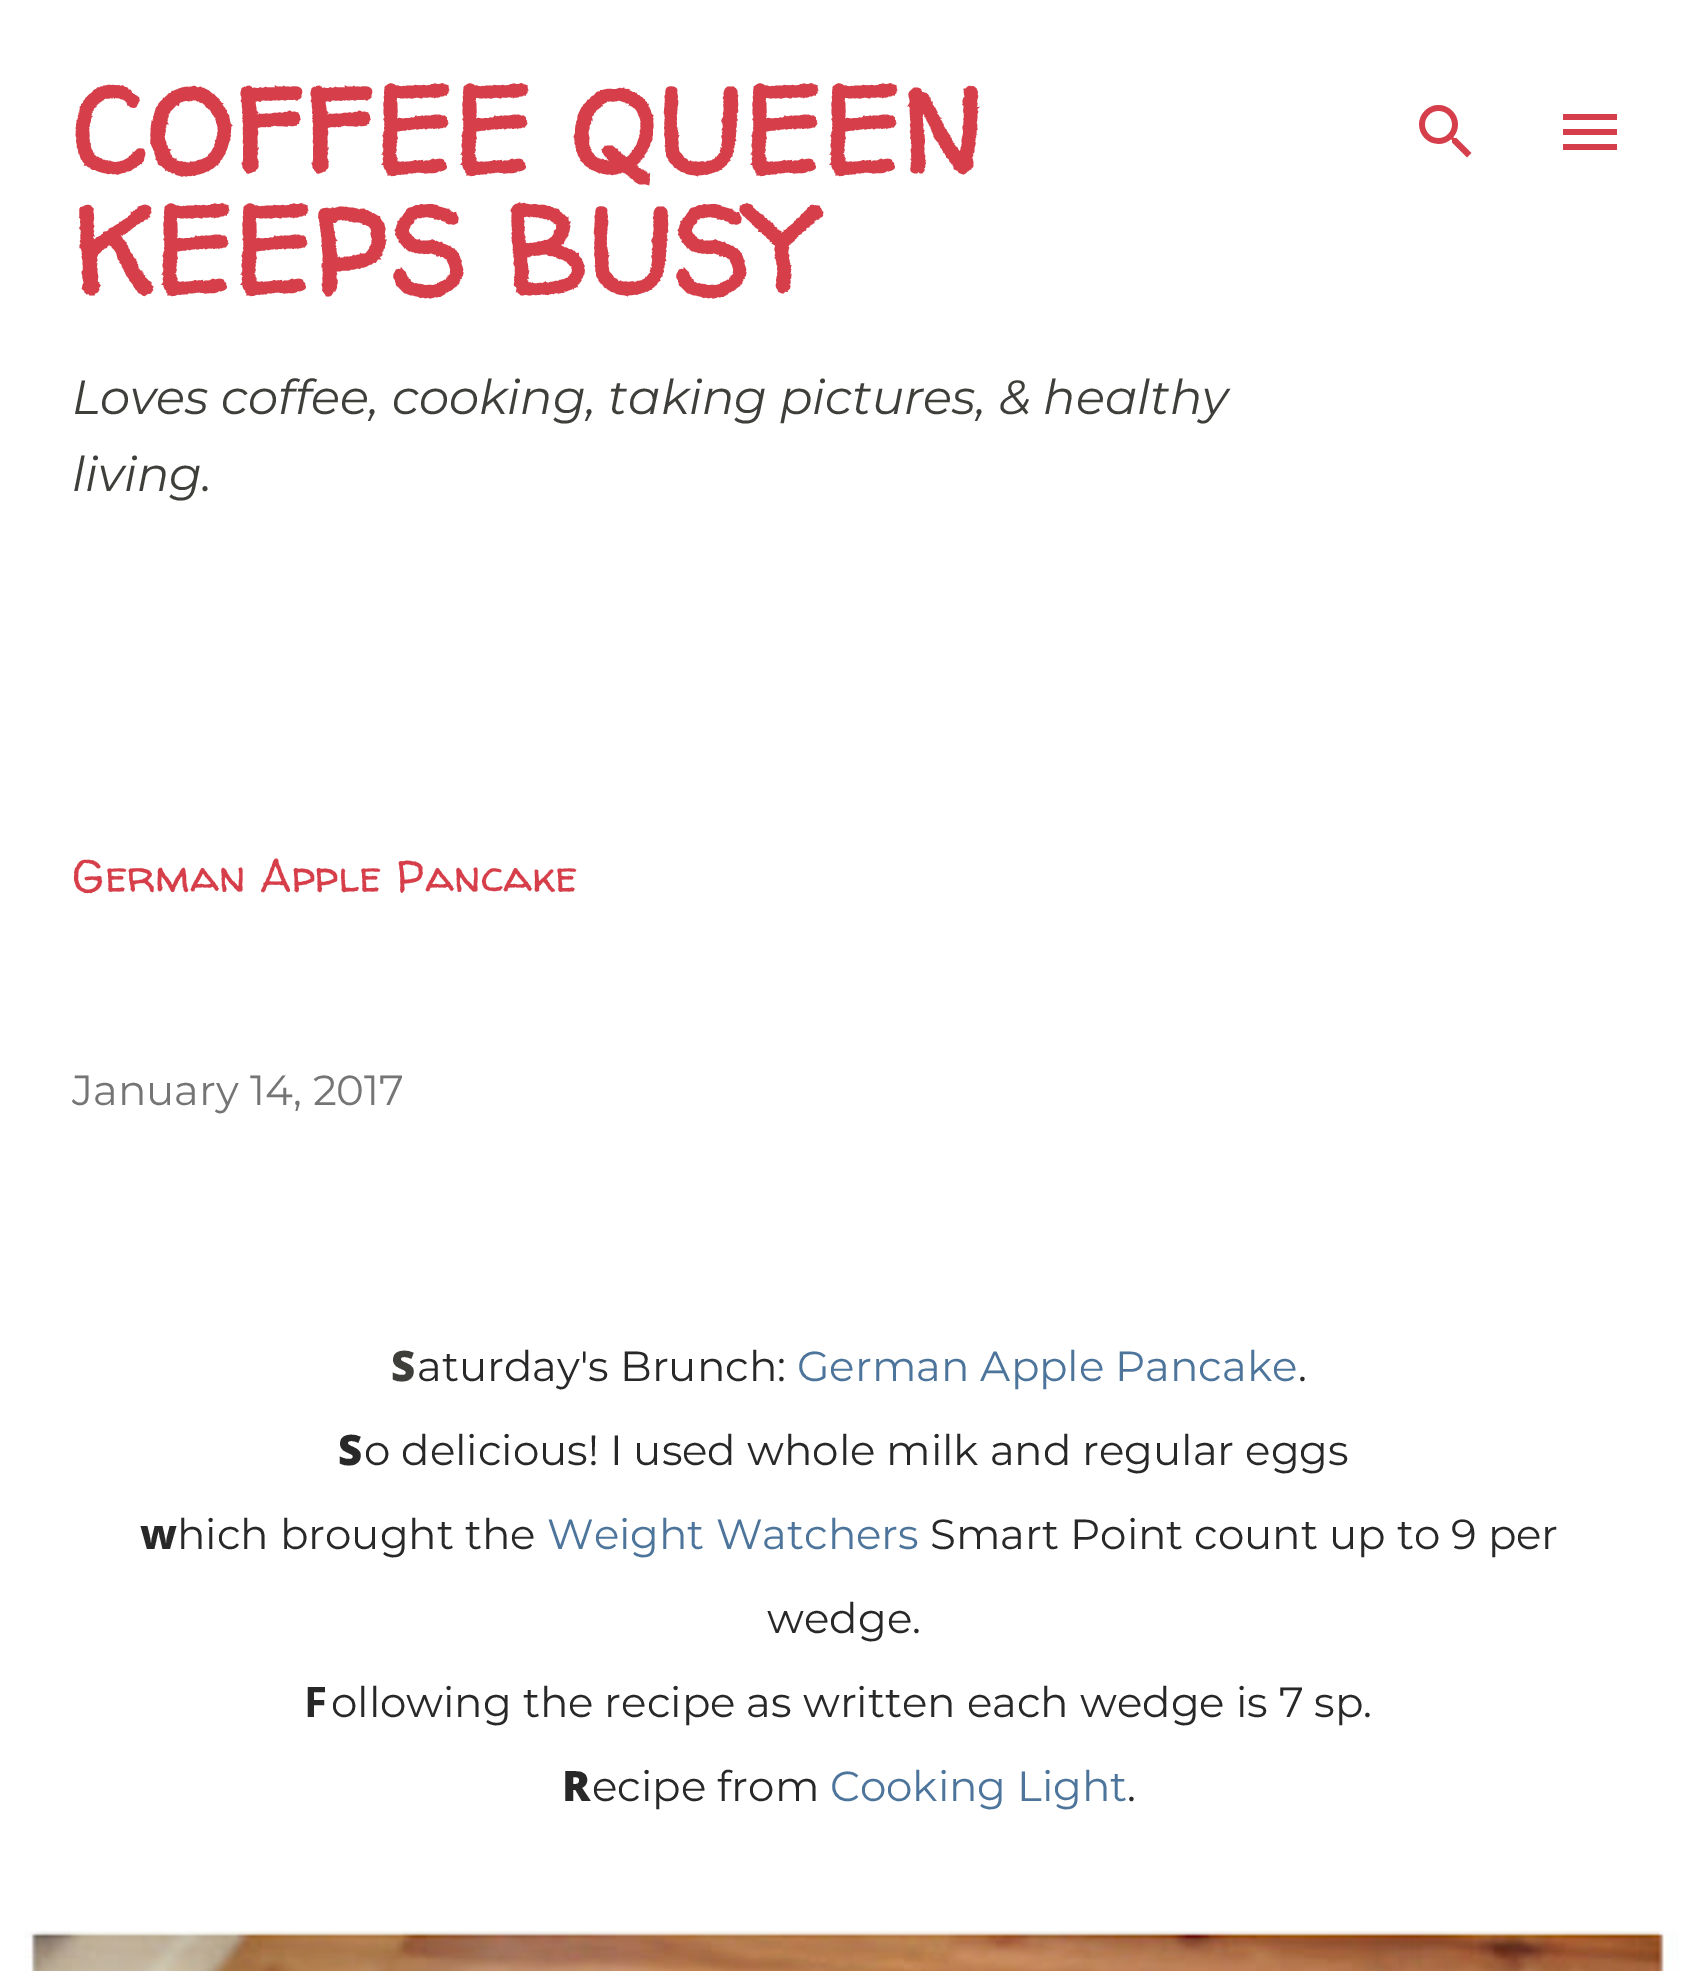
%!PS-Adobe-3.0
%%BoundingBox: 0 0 1697 1971
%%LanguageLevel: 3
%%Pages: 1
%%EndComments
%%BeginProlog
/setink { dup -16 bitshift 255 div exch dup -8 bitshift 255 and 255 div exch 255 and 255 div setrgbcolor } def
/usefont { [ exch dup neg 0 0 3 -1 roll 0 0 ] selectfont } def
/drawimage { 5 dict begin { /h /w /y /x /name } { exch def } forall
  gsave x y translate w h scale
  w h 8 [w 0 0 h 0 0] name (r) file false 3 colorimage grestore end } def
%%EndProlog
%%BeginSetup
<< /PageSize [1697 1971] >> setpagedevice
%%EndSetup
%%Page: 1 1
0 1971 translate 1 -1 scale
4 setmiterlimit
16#FFFFFF setink
0 0 1697 1971 rectfill
/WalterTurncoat-Bold 120 usefont
16#D63E4A setink
72 174 moveto (COFFEE QUEEN) show
72 294 moveto (KEEPS BUSY) show
/Montserrat-ThinItalic 48 usefont
16#3E3E3B setink
72 414 moveto (Loves coffee, cooking, taking pictures, & healthy) show
72 491 moveto (living.) show
(img1.raw) 1419 105 53 53 drawimage
(img2.raw) 1563 114 54 36 drawimage
/WalterTurncoat-Regular 45 usefont
16#D63E4A setink
72 892 moveto (German Apple Pancake) show
/Montserrat-Thin 42 usefont
16#757575 setink
72 1105 moveto (January 14, 2017) show
/NotoSans-Black 42 usefont
16#3E3E3B setink
391 1381 moveto (S) show
/Montserrat-Thin 42 usefont
16#282828 setink
417 1381 moveto (aturday's Brunch:) show
16#4D759B setink
797 1381 moveto (German Apple Pancake) show
16#282828 setink
1298 1381 moveto (.) show
/NotoSans-Black 42 usefont
338 1465 moveto (S) show
/Montserrat-Thin 42 usefont
364 1465 moveto (o delicious! I used whole milk and regular eggs) show
/NotoSans-ExtraBold 42 usefont
140 1549 moveto (w) show
/Montserrat-Thin 42 usefont
177 1549 moveto (hich brought the) show
16#4D759B setink
547 1549 moveto (Weight Watchers) show
16#282828 setink
930 1549 moveto (Smart Point count up to 9 per) show
767 1633 moveto (wedge.) show
/NotoSans-Bold 42 usefont
304 1717 moveto (F) show
/Montserrat-Thin 42 usefont
331 1717 moveto (ollowing the recipe as written each wedge is 7 sp.) show
/NotoSans-Black 42 usefont
562 1801 moveto (R) show
/Montserrat-Thin 42 usefont
592 1801 moveto (ecipe from) show
16#4D759B setink
830 1801 moveto (Cooking Light) show
16#282828 setink
1127 1801 moveto (.) show
(img3.raw) 24 1930 1655 41 drawimage
showpage
%%EOF
